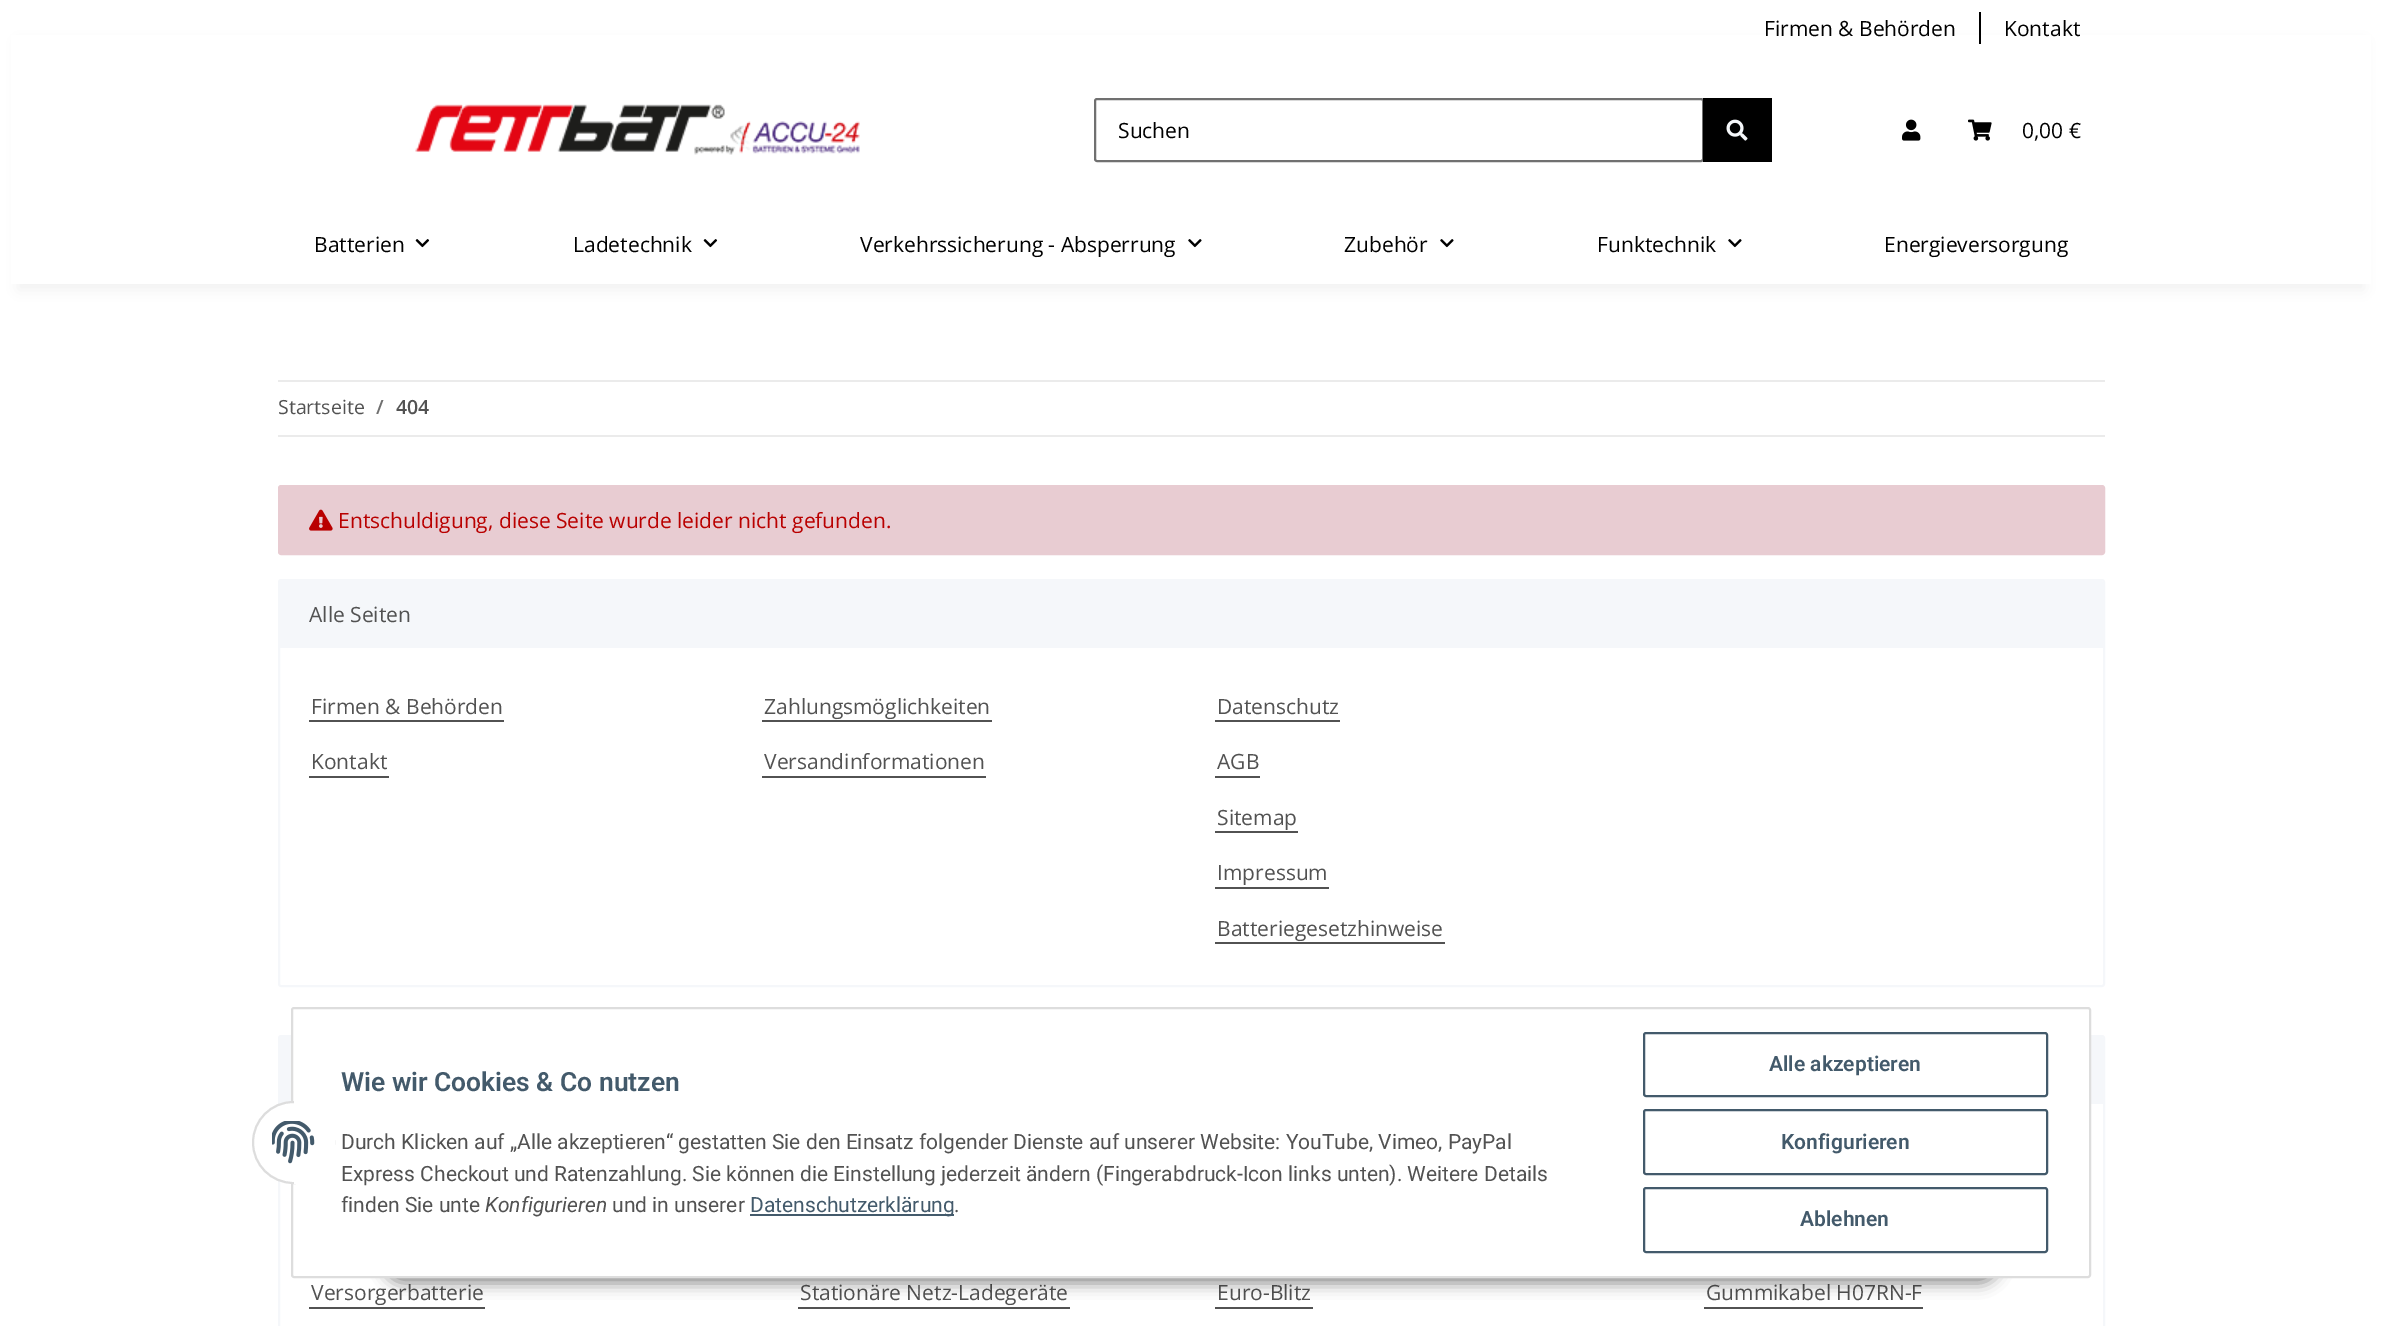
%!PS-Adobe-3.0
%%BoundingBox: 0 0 2382 1326
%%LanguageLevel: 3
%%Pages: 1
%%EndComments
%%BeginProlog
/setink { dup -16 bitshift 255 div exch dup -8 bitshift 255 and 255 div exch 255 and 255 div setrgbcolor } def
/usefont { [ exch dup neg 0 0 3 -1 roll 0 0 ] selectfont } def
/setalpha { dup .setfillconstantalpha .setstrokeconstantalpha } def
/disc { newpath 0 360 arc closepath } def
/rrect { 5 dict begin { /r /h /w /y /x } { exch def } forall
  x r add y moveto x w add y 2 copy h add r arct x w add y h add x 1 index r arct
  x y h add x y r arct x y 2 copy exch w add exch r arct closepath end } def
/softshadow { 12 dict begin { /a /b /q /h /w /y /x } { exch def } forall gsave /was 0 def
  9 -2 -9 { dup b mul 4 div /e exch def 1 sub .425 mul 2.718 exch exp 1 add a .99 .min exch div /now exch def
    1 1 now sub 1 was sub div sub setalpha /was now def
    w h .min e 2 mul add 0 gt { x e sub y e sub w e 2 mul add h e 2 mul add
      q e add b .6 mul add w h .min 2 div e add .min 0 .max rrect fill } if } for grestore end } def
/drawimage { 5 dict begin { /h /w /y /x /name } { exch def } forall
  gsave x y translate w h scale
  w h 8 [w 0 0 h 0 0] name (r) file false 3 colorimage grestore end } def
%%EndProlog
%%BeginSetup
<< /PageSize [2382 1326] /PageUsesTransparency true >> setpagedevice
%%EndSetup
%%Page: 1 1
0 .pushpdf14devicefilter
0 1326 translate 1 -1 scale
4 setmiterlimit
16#FFFFFF setink
0 0 2382 1326 rectfill
16#000000 setink
18 42 2346 248 0 7 0.06 softshadow
16#FFFFFF setink
11 35 2360 249 rectfill
/OpenSans-Regular 21 usefont
16#000000 setink
1764 36 moveto (Firmen & Behörden) show
1979 12 2 32 rectfill
2004 36 moveto (Kontakt) show
(img1.raw) 415 104 445 51 drawimage
16#707070 setink
2 setlinewidth
1095 99 608 62 2 rrect stroke
16#000000 setink
1118 138 moveto (Suchen) show
1703 98 69 64 rectfill
(img2.raw) 1726 119 22 22 drawimage
(img3.raw) 1902 119 19 22 drawimage
(img4.raw) 1968 119 24 22 drawimage
2022 138 moveto (0,00 €) show
314 252 moveto (Batterien) show
(img5.raw) 415 239 15 9 drawimage
573 252 moveto (Ladetechnik) show
(img5.raw) 703 239 15 9 drawimage
860 252 moveto (Verkehrssicherung - Absperrung) show
(img6.raw) 1188 239 14 9 drawimage
1344 252 moveto (Zubehör) show
(img6.raw) 1440 239 14 9 drawimage
1597 252 moveto (Funktechnik) show
(img6.raw) 1728 239 14 9 drawimage
1884 252 moveto (Energieversorgung) show
16#EBEBEB setink
278 380 1827 2 rectfill
278 435 1827 2 rectfill
/OpenSans-Regular 19.5 usefont
16#525252 setink
278 414 moveto (Startseite) show
/OpenSans-SemiBold 19.5 usefont
16#707070 setink
376 414 moveto (/) show
16#525252 setink
396 414 moveto (404) show
16#E8CCD2 setink
279 486 1825 68 2 rrect gsave fill grestore
stroke
(img7.raw) 309 509 24 22 drawimage
/OpenSans-Regular 21 usefont
16#B90000 setink
338 528 moveto (Entschuldigung, diese Seite wurde leider nicht gefunden.) show
16#F5F7FA setink
279 580 1825 406 2 rrect stroke
280.5 581 moveto 2101.5 581 lineto 2102.5 581 2103 581.5 2103 582.5 curveto 2103 648 lineto 279 648 lineto 279 582.5 lineto 279 581.5 279.5 581 280.5 581 curveto closepath fill
16#525252 setink
309 622 moveto (Alle Seiten) show
311 714 moveto (Firmen & Behörden) show
309 720 195 2 rectfill
311 769 moveto (Kontakt) show
309 776 80 2 rectfill
764 714 moveto (Zahlungsmöglichkeiten) show
762 720 230 2 rectfill
764 769 moveto (Versandinformationen) show
762 776 224 2 rectfill
1217 714 moveto (Datenschutz) show
1215 720 125 2 rectfill
1217 769 moveto (AGB) show
1215 776 45 2 rectfill
1217 825 moveto (Sitemap) show
1215 831 83 2 rectfill
1217 880 moveto (Impressum) show
1215 887 114 2 rectfill
1217 936 moveto (Batteriegesetzhinweise) show
1215 942 230 2 rectfill
16#F5F7FA setink
279 1036 1825 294 2 rrect stroke
280.5 1037 moveto 2101.5 1037 lineto 2102.5 1037 2103 1037.5 2103 1038.5 curveto 2103 1104 lineto 279 1104 lineto 279 1038.5 lineto 279 1037.5 279.5 1037 280.5 1037 curveto closepath fill
16#525252 setink
311 1300 moveto (Versorgerbatterie) show
309 1307 176 2 rectfill
800 1300 moveto (Stationäre Netz-Ladegeräte) show
798 1307 272 2 rectfill
1217 1300 moveto (Euro-Blitz) show
1215 1307 98 2 rectfill
1706 1300 moveto (Gummikabel H07RN-F) show
1704 1307 219 2 rectfill
16#000000 setink
383 1235 1617 48 24 7.5 0.45 softshadow
16#FFFFFF setink
292 1008 1798 269 2 rrect gsave fill grestore
16#DDDDDD setink
stroke
16#FFFFFF setink
293.5 1142.5 40.5 disc gsave fill grestore
16#DDDDDD setink
stroke
16#FFFFFF setink
294 1101 41 83 rectfill
(img8.raw) 272 1121 43 43 drawimage
/Roboto-SemiBold 26.4 usefont
16#435A6B setink
341 1091 moveto (Wie wir Cookies & Co nutzen) show
/Roboto-Regular 21 usefont
16#525252 setink
[
    [(Durch Klicken auf „Alle akzeptieren“ gestatten Sie den Einsatz folgender Dienste auf unserer Website: YouTube, Vimeo, PayPal) 341 1149]
    [(Express Checkout und Ratenzahlung. Sie können die Einstellung jederzeit ändern \(Fingerabdruck-Icon links unten\). Weitere Details) 341 1181]
    [(finden Sie unte) 341 1212]
] { aload pop moveto show } forall
/Roboto-Italic 21 usefont
485 1212 moveto (Konfigurieren) show
/Roboto-Regular 21 usefont
612 1212 moveto (und in unserer) show
16#435A6B setink
750 1214 204 2 rectfill
750 1212 moveto (Datenschutzerklärung) show
16#525252 setink
954 1212 moveto (.) show
16#435A6B setink
1644 1033 403 63 2 rrect stroke
/Roboto-SemiBold 21 usefont
1769 1071 moveto (Alle akzeptieren) show
1644 1110 403 64 2 rrect stroke
1781 1149 moveto (Konfigurieren) show
1644 1188 403 64 2 rrect stroke
1800 1226 moveto (Ablehnen) show
.poppdf14devicefilter showpage
%%EOF
